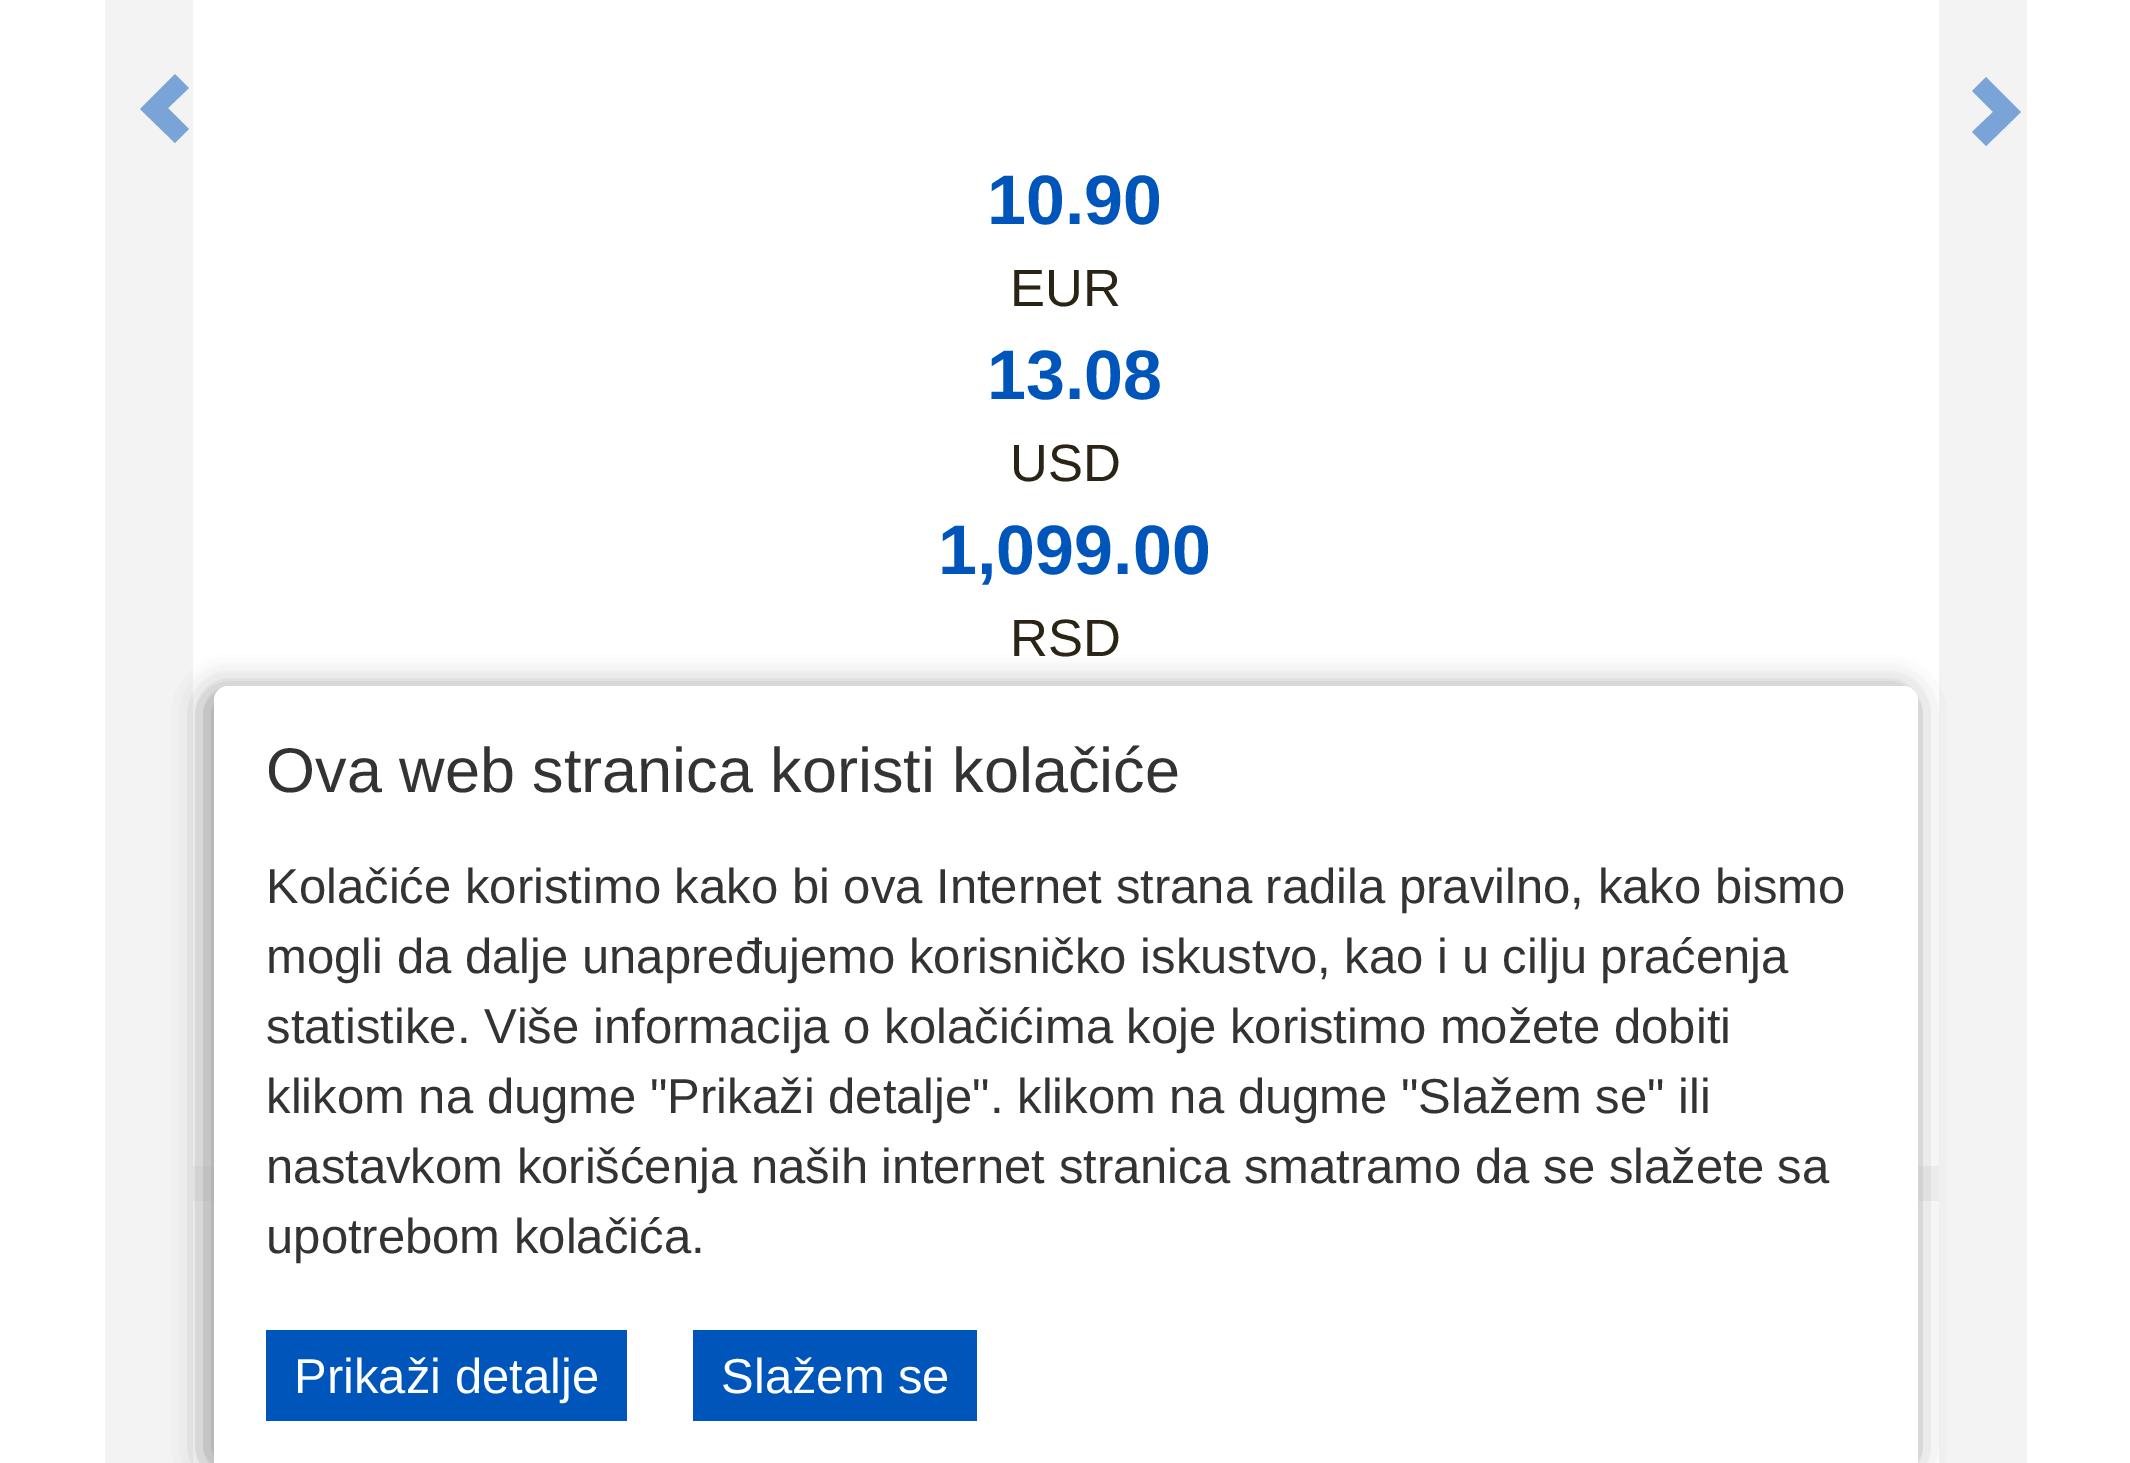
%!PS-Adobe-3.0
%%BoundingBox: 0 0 2130 1463
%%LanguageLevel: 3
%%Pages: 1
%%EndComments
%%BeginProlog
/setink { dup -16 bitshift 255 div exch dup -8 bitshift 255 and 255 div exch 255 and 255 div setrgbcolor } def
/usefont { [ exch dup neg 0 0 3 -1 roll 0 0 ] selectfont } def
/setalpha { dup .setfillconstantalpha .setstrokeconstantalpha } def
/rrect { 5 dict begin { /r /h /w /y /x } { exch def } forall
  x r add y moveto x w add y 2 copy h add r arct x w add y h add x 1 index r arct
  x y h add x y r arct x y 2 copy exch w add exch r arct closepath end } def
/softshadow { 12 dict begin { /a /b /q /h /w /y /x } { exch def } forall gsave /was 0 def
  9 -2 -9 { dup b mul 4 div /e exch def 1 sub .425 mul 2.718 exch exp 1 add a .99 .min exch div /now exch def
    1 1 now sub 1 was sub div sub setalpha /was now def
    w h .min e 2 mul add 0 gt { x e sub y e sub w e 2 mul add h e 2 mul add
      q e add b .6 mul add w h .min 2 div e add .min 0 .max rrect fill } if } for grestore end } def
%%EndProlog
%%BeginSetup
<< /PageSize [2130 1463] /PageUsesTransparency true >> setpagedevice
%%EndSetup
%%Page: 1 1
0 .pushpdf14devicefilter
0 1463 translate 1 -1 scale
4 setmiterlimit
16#FFFFFF setink
0 0 2130 1463 rectfill
16#F3F3F3 setink
105 0 1922 1463 rectfill
16#7AA4D7 setink
140 109 moveto 175 143 lineto 189 129 lineto 168 108 lineto 189 88 lineto 175 74 lineto closepath fill
1972 132 moveto 1993 112 lineto 1972 91 lineto 1986 77 lineto 2021 112 lineto 1986 146 lineto closepath fill
16#FFFFFF setink
193 0 1746 1166 rectfill
/LiberationSans-Bold 70 usefont
16#0055BB setink
987 224 moveto (10.90) show
/LiberationSans-Regular 52.5 usefont
16#2A2415 setink
1010 306 moveto (EUR) show
/LiberationSans-Bold 70 usefont
16#0055BB setink
987 399 moveto (13.08) show
/LiberationSans-Regular 52.5 usefont
16#2A2415 setink
1010 481 moveto (USD) show
/LiberationSans-Bold 70 usefont
16#0055BB setink
938 574 moveto (1,099.00) show
/LiberationSans-Regular 52.5 usefont
16#2A2415 setink
1010 656 moveto (RSD) show
16#FFFFFF setink
193 1201 1746 262 rectfill
gsave
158 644 moveto 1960 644 lineto 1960 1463 lineto 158 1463 lineto closepath 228 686 moveto 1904 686 lineto 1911.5 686 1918 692.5 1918 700 curveto 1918 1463 lineto 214 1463 lineto 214 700 lineto 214 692.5 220.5 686 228 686 curveto closepath eoclip newpath
16#A5A5A5 setink
207 693 1704 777 14 16 0.8 softshadow
grestore
gsave
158 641 moveto 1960 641 lineto 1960 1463 lineto 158 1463 lineto closepath 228 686 moveto 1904 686 lineto 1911.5 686 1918 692.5 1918 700 curveto 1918 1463 lineto 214 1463 lineto 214 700 lineto 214 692.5 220.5 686 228 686 curveto closepath eoclip newpath
16#A5A5A5 setink
207 690 1704 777 14 16 0.8 softshadow
grestore
228 686 moveto 1904 686 lineto 1911.5 686 1918 692.5 1918 700 curveto 1918 1463 lineto 214 1463 lineto 214 700 lineto 214 692.5 220.5 686 228 686 curveto closepath fill
/LiberationSans-Regular 63 usefont
16#333333 setink
266 792 moveto (Ova web stranica koristi kolačiće) show
/LiberationSans-Regular 49 usefont
[
    [(Kolačiće koristimo kako bi ova Internet strana radila pravilno, kako bismo) 266 903]
    [(mogli da dalje unapređujemo korisničko iskustvo, kao i u cilju praćenja) 266 973]
    [(statistike. Više informacija o kolačićima koje koristimo možete dobiti) 266 1043]
    [(klikom na dugme "Prikaži detalje". klikom na dugme "Slažem se" ili) 266 1113]
    [(nastavkom korišćenja naših internet stranica smatramo da se slažete sa) 266 1183]
    [(upotrebom kolačića.) 266 1253]
] { aload pop moveto show } forall
16#0055BB setink
266 1330 361 91 rectfill
16#FFFFFF setink
294 1393 moveto (Prikaži detalje) show
16#0055BB setink
693 1330 284 91 rectfill
16#FFFFFF setink
721 1393 moveto (Slažem se) show
.poppdf14devicefilter showpage
%%EOF
